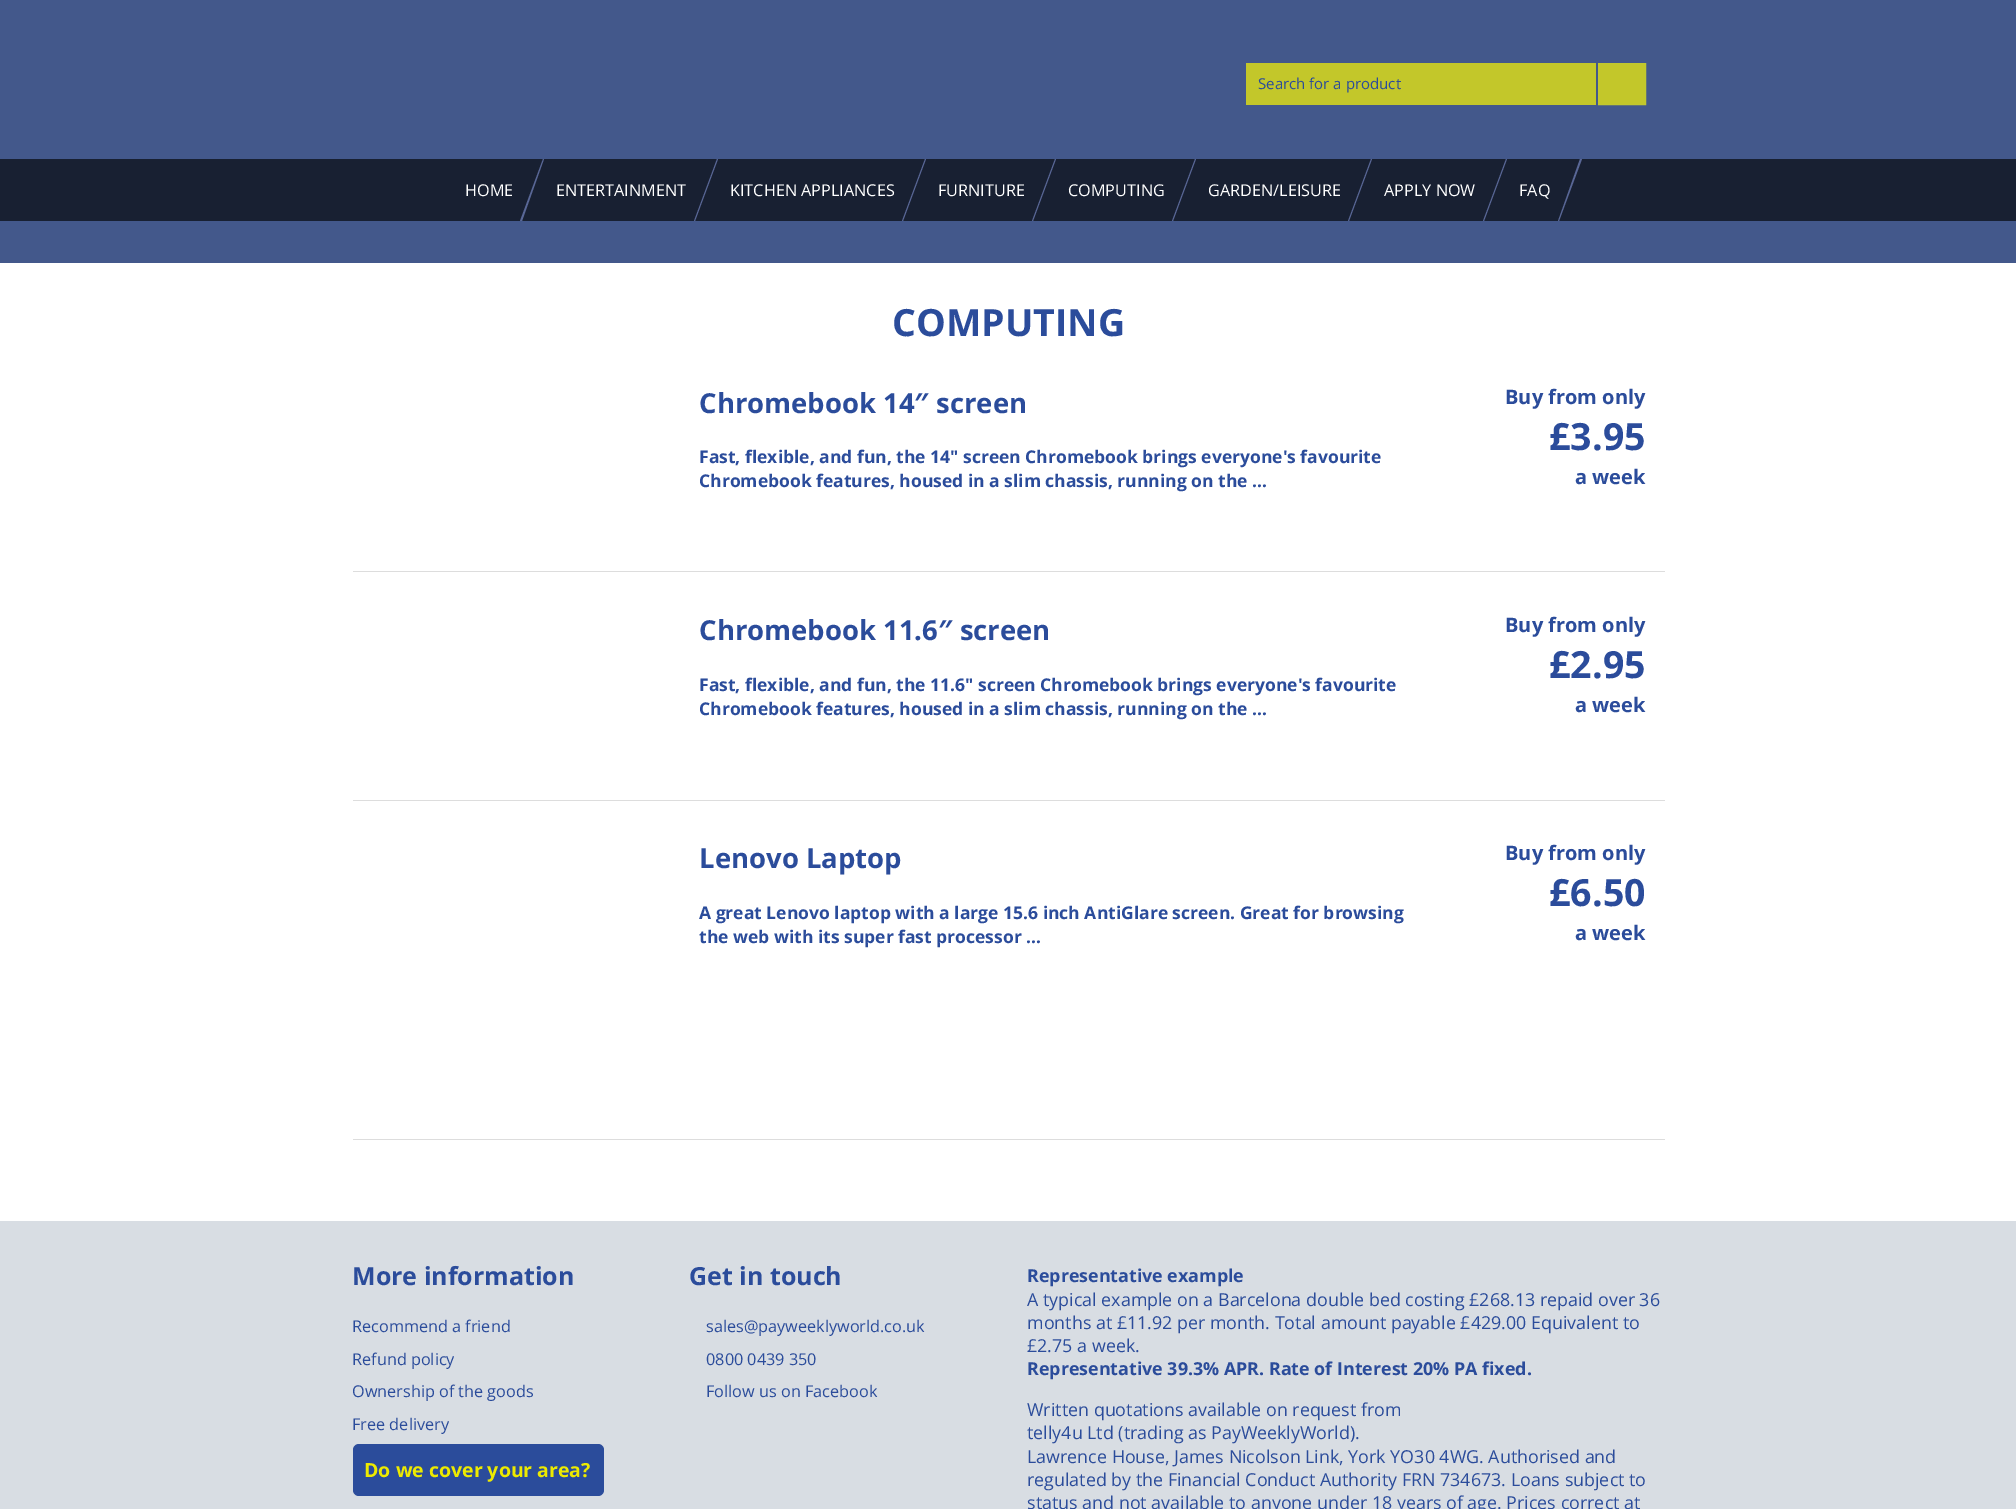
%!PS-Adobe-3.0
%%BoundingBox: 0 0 2016 1509
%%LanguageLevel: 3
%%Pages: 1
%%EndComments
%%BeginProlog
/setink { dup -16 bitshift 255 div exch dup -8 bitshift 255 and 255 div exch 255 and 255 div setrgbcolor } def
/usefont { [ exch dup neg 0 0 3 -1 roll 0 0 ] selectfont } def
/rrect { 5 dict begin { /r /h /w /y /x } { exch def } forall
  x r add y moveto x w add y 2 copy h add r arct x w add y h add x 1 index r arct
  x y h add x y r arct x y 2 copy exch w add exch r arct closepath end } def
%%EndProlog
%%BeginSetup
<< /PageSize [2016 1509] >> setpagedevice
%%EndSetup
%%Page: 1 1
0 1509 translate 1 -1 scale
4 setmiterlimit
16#FFFFFF setink
0 0 2016 1509 rectfill
16#43588B setink
0 0 2016 263 rectfill
16#C3C72A setink
1246 63 350 42 rectfill
/OpenSans-Regular 15 usefont
16#2B4C9B setink
1258 89 moveto (Search for a product) show
16#C3C72A setink
1598.5 63.5 moveto 1645.5 63.5 lineto 1645.5 104.5 lineto 1598.5 104.5 lineto closepath gsave fill grestore
16#C2C82E setink
stroke
16#182032 setink
0 159 2016 62 rectfill
16#596796 setink
543 159 moveto 544 159 lineto 522 221 lineto 520 221 lineto closepath fill
/OpenSans-Regular 16.25 usefont
16#FFFFFF setink
465 196 moveto (HOME) show
16#596796 setink
717 159 moveto 718 159 lineto 695 221 lineto 694 221 lineto closepath fill
16#FFFFFF setink
556 196 moveto (ENTERTAINMENT) show
16#596796 setink
925 159 moveto 926 159 lineto 903 221 lineto 902 221 lineto closepath fill
16#FFFFFF setink
730 196 moveto (KITCHEN APPLIANCES) show
16#596796 setink
1055 159 moveto 1056 159 lineto 1033 221 lineto 1032 221 lineto closepath fill
16#FFFFFF setink
938 196 moveto (FURNITURE) show
16#596796 setink
1195 159 moveto 1196 159 lineto 1173 221 lineto 1172 221 lineto closepath fill
16#FFFFFF setink
1068 196 moveto (COMPUTING) show
16#596796 setink
1371 159 moveto 1372 159 lineto 1349 221 lineto 1348 221 lineto closepath fill
16#FFFFFF setink
1208 196 moveto (GARDEN/LEISURE) show
16#596796 setink
1506 159 moveto 1507 159 lineto 1484 221 lineto 1483 221 lineto closepath fill
16#FFFFFF setink
1384 196 moveto (APPLY NOW) show
16#596796 setink
1580 159 moveto 1582 159 lineto 1559 221 lineto 1558 221 lineto closepath fill
16#FFFFFF setink
1519 196 moveto (FAQ) show
/OpenSans-Bold 37.5 usefont
16#2B4C9B setink
892 336 moveto (COMPUTING) show
16#DDDDDD setink
353 571 1312 1 rectfill
/OpenSans-Bold 27.5 usefont
16#2B4C9B setink
699 413 moveto (Chromebook 14″ screen) show
/OpenSans-Bold 17.5 usefont
699 463 moveto (Fast, flexible, and fun, the 14" screen Chromebook brings everyone's favourite) show
699 487 moveto (Chromebook features, housed in a slim chassis, running on the …) show
/OpenSans-Bold 20 usefont
1505 404 moveto (Buy from only) show
/OpenSans-Bold 37.5 usefont
1549 450 moveto (£3.95) show
/OpenSans-Bold 20 usefont
1575 484 moveto (a week) show
16#DDDDDD setink
353 800 1312 1 rectfill
/OpenSans-Bold 27.5 usefont
16#2B4C9B setink
699 640 moveto (Chromebook 11.6″ screen) show
/OpenSans-Bold 17.5 usefont
699 691 moveto (Fast, flexible, and fun, the 11.6" screen Chromebook brings everyone's favourite) show
699 715 moveto (Chromebook features, housed in a slim chassis, running on the …) show
/OpenSans-Bold 20 usefont
1505 632 moveto (Buy from only) show
/OpenSans-Bold 37.5 usefont
1549 678 moveto (£2.95) show
/OpenSans-Bold 20 usefont
1575 712 moveto (a week) show
16#DDDDDD setink
353 1139 1312 1 rectfill
/OpenSans-Bold 27.5 usefont
16#2B4C9B setink
699 868 moveto (Lenovo Laptop) show
/OpenSans-Bold 17.5 usefont
699 919 moveto (A great Lenovo laptop with a large 15.6 inch AntiGlare screen. Great for browsing) show
699 943 moveto (the web with its super fast processor …) show
/OpenSans-Bold 20 usefont
1505 860 moveto (Buy from only) show
/OpenSans-Bold 37.5 usefont
1549 906 moveto (£6.50) show
/OpenSans-Bold 20 usefont
1575 940 moveto (a week) show
16#D8DDE3 setink
0 1221 2016 288 rectfill
/OpenSans-Bold 25 usefont
16#2B4C9B setink
352 1285 moveto (More information) show
/OpenSans-Regular 16.25 usefont
[
    [(Recommend a friend) 352 1332]
    [(Refund policy) 352 1365]
    [(Ownership of the goods) 352 1397]
    [(Free delivery) 352 1430]
] { aload pop moveto show } forall
353 1444 251 52 6 rrect fill
/OpenSans-Bold 19.5 usefont
16#EDEA00 setink
364 1477 moveto (Do we cover your area?) show
/OpenSans-Bold 25 usefont
16#2B4C9B setink
689 1285 moveto (Get in touch) show
/OpenSans-Regular 16.25 usefont
[
    [(sales@payweeklyworld.co.uk) 706 1332]
    [(0800 0439 350) 706 1365]
    [(Follow us on Facebook) 706 1397]
] { aload pop moveto show } forall
/OpenSans-Bold 17.85 usefont
1027 1282 moveto (Representative example) show
/OpenSans-Regular 17.85 usefont
[
    [(A typical example on a Barcelona double bed costing £268.13 repaid over 36) 1027 1306]
    [(months at £11.92 per month. Total amount payable £429.00 Equivalent to) 1027 1329]
    [(£2.75 a week.) 1027 1352]
] { aload pop moveto show } forall
/OpenSans-Bold 17.85 usefont
1027 1375 moveto (Representative 39.3% APR. Rate of Interest 20% PA fixed.) show
/OpenSans-Regular 17.85 usefont
[
    [(Written quotations available on request from) 1027 1416]
    [(telly4u Ltd \(trading as PayWeeklyWorld\).) 1027 1439]
    [(Lawrence House, James Nicolson Link, York YO30 4WG. Authorised and) 1027 1463]
    [(regulated by the Financial Conduct Authority FRN 734673. Loans subject to) 1027 1486]
    [(status and not available to anyone under 18 years of age. Prices correct at) 1027 1509]
] { aload pop moveto show } forall
showpage
%%EOF
